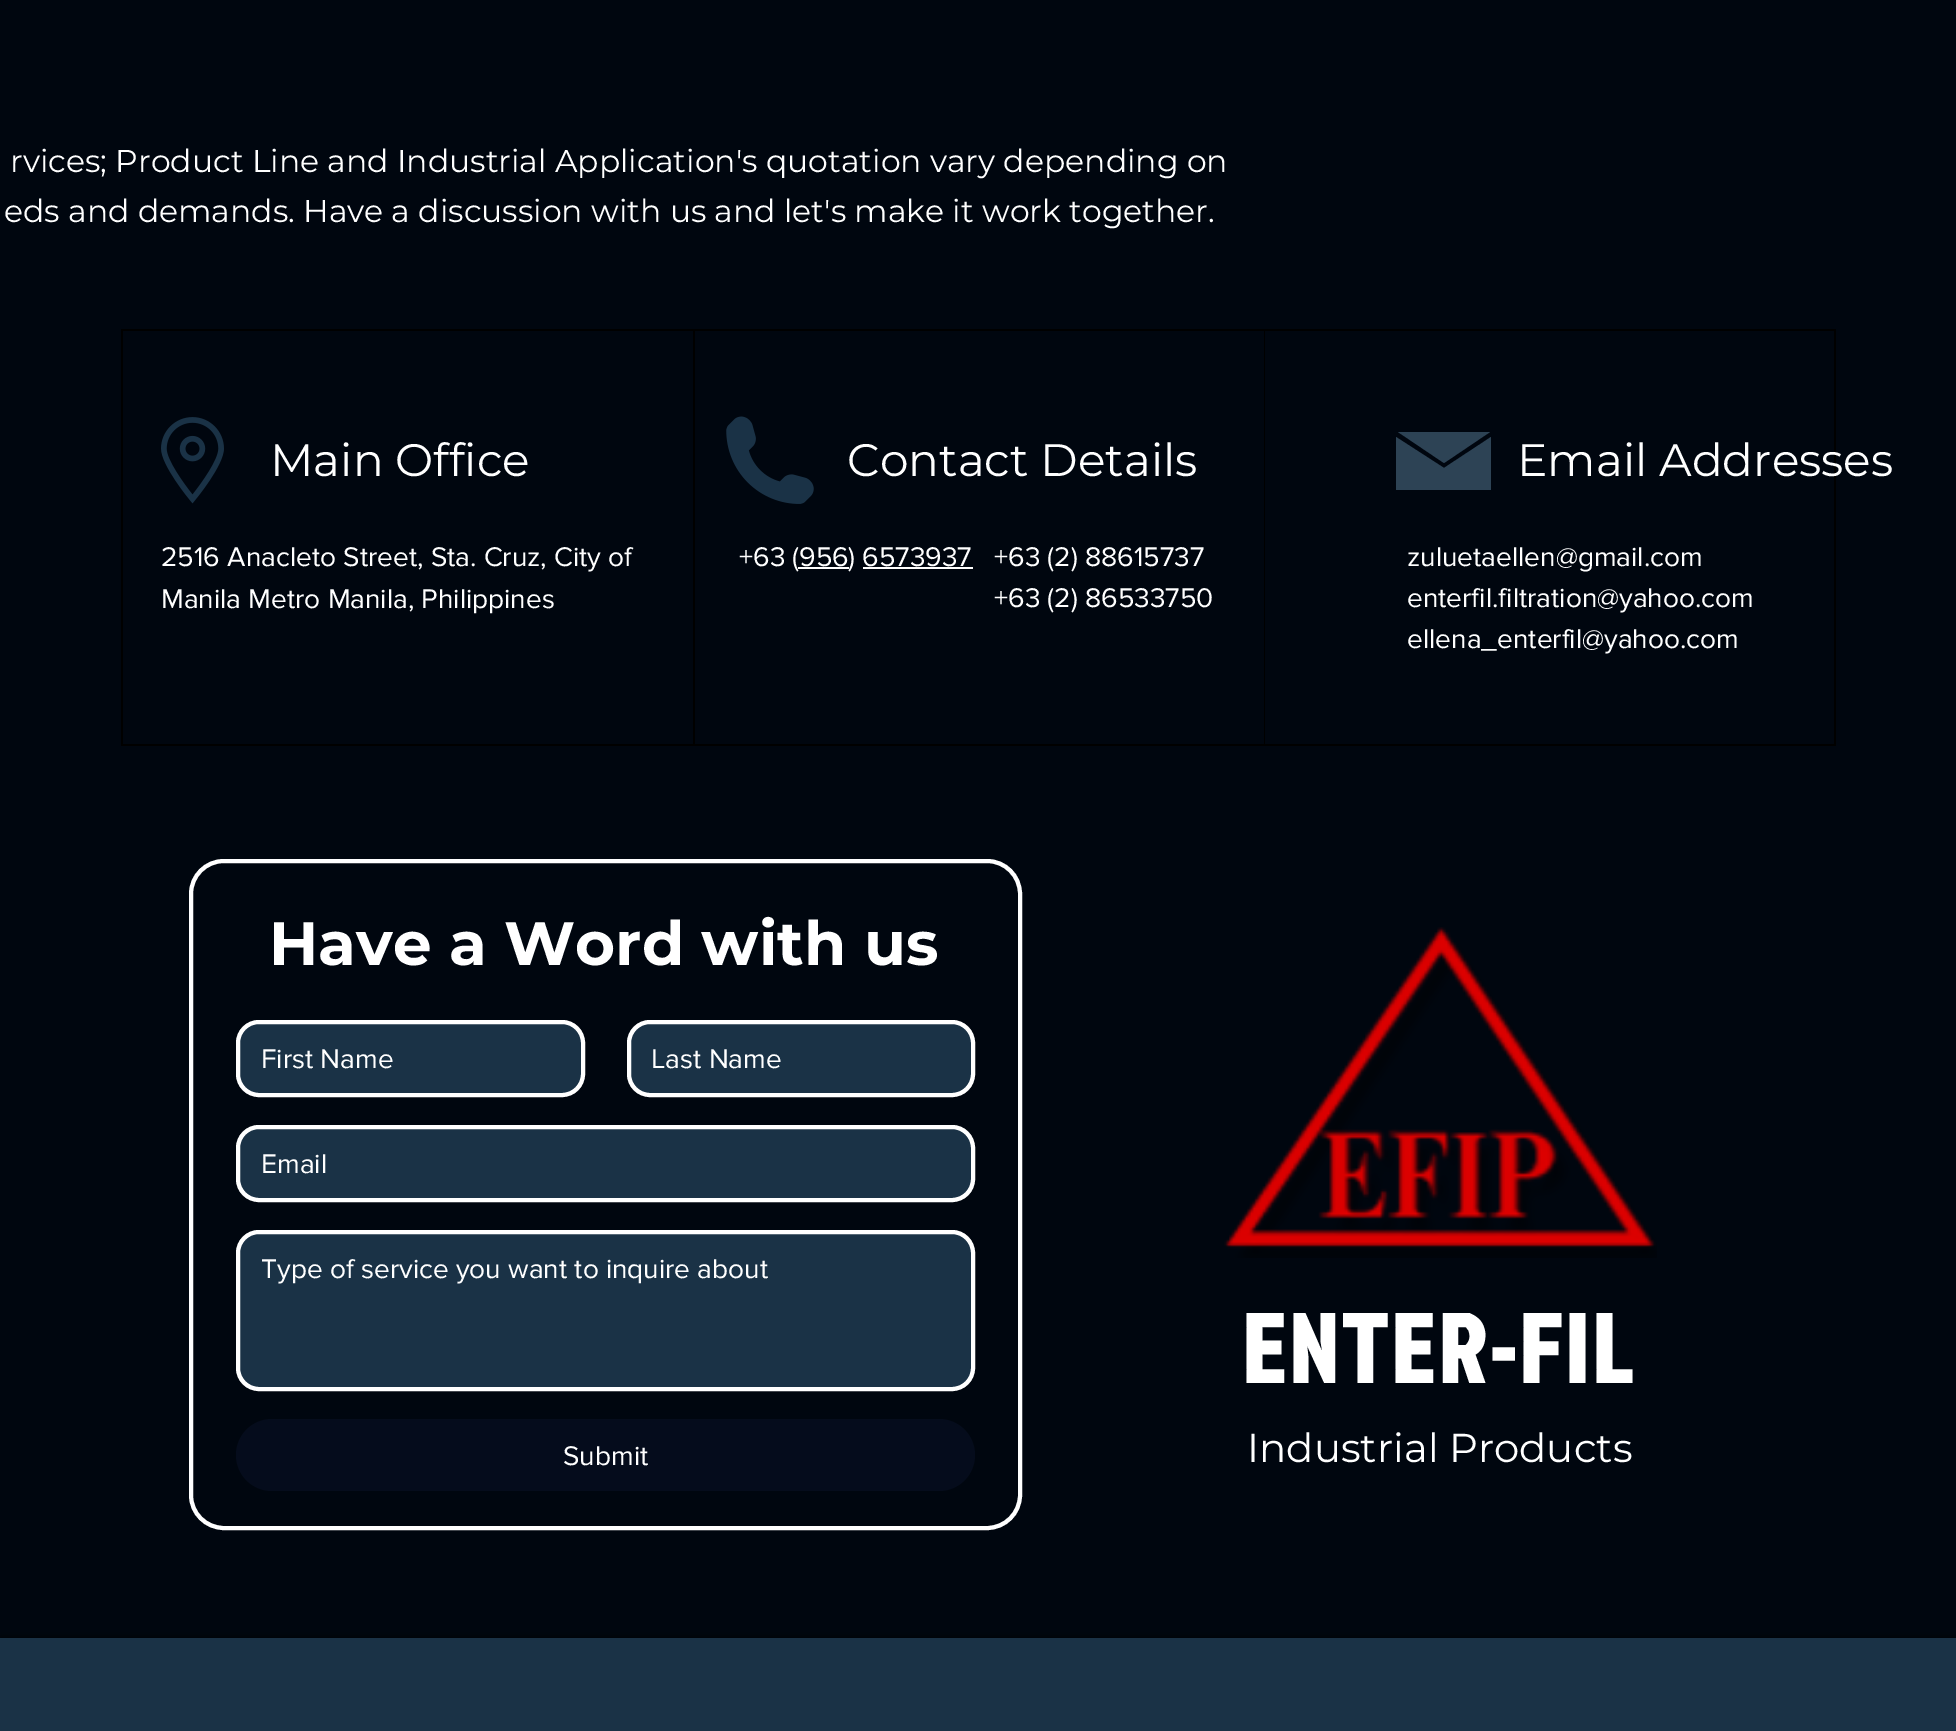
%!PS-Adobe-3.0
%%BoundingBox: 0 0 1956 1731
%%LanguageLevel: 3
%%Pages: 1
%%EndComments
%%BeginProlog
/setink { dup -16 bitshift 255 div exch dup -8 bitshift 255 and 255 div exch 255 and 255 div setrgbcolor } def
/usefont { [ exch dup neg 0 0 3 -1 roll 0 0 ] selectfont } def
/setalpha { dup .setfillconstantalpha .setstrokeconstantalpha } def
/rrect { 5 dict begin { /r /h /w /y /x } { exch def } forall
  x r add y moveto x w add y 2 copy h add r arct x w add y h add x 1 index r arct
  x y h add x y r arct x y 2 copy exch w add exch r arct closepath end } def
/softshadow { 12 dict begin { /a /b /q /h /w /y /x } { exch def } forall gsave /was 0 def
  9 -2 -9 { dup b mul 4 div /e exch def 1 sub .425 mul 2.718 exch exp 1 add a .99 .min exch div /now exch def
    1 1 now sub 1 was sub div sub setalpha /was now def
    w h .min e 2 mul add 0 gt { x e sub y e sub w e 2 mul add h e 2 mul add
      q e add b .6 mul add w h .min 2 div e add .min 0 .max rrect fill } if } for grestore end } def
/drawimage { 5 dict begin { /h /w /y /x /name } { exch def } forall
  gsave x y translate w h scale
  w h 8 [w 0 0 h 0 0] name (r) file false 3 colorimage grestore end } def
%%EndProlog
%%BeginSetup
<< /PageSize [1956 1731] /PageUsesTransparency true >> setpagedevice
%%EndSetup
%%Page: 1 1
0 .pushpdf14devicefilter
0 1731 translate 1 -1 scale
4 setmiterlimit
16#00060F setink
0 0 1956 1731 rectfill
/Montserrat-Regular 31.5 usefont
16#FFFFFF setink
10 172 moveto (rvices; Product Line and Industrial Application's quotation vary depending on) show
4 222 moveto (eds and demands. Have a discussion with us and let's make it work together.) show
4 setlinewidth
191 861 829 667 33 rrect stroke
/Montserrat-Bold 61.25 usefont
269 965 moveto (Have a Word with us) show
16#1A3246 setink
238 1022 345 73 21 rrect gsave fill grestore
16#FFFFFF setink
stroke
/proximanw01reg-Regular 28 usefont
261 1068 moveto (First Name) show
16#1A3246 setink
629 1022 344 73 21 rrect gsave fill grestore
16#FFFFFF setink
stroke
651 1068 moveto (Last Name) show
16#1A3246 setink
238 1127 735 73 21 rrect gsave fill grestore
16#FFFFFF setink
stroke
261 1173 moveto (Email) show
16#1A3246 setink
238 1232 735 157 21 rrect gsave fill grestore
16#FFFFFF setink
stroke
261 1278 moveto (Type of service you want to inquire about) show
16#050C1C setink
236 1419 739 72 36 rrect fill
16#FFFFFF setink
563 1465 moveto (Submit) show
(img1.raw) 1224 927 433 331 drawimage
/JockeyOne-Bold 96.25 usefont
1242 1383 moveto 4.75 0 (ENTER-FIL) ashow
/Montserrat-Regular 40.25 usefont
1247 1462 moveto (Industrial Products) show
16#000000 setink
121 329 1715 417 rectfill
16#00060F setink
123 331 570 413 rectfill
(img2.raw) 161 417 63 87 drawimage
/Montserrat-Regular 45.5 usefont
16#FFFFFF setink
270 476 moveto (Main Office) show
/proximanw01reg-Regular 28 usefont
161 566 moveto (2516 Anacleto Street, Sta. Cruz, City of) show
161 608 moveto (Manila Metro Manila, Philippines) show
16#00060F setink
695 331 569 413 rectfill
(img3.raw) 726 416 88 88 drawimage
/Montserrat-Regular 45.5 usefont
16#FFFFFF setink
847 476 moveto (Contact Details) show
/proximanw01reg-Regular 28 usefont
739 566 moveto (+63 \(956) show
798 567 51 2 rectfill
848 566 moveto (\) 6573937) show
863 567 110 2 rectfill
994 566 moveto (+63 \(2\) 88615737) show
994 607 moveto (+63 \(2\) 86533750) show
16#00060F setink
1265 331 569 413 rectfill
16#2D4355 setink
1444 463 moveto 1398 432 lineto 1490 432 lineto closepath 1491 437 moveto 1444 468 lineto 1396 437 lineto 1396 490 lineto 1491 490 lineto closepath fill
/Montserrat-Regular 45.5 usefont
16#FFFFFF setink
1517 476 moveto (Email Addresses) show
/proximanw01reg-Regular 28 usefont
[
    [(zuluetaellen@gmail.com) 1407 566]
    [(enterfil.filtration@yahoo.com) 1407 607]
    [(ellena_enterfil@yahoo.com) 1407 648]
] { aload pop moveto show } forall
16#000000 setink
0 1638 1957 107 0 4.5 0.7 softshadow
16#1A3246 setink
0 1638 1956 93 rectfill
.poppdf14devicefilter showpage
%%EOF
